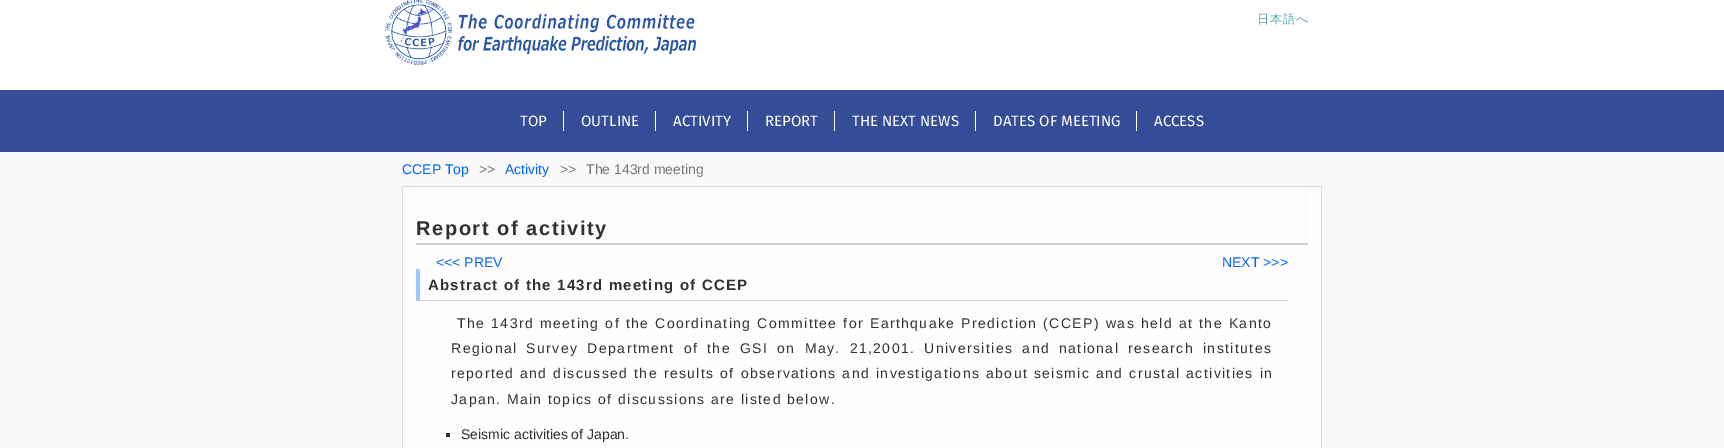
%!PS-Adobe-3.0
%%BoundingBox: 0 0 1724 448
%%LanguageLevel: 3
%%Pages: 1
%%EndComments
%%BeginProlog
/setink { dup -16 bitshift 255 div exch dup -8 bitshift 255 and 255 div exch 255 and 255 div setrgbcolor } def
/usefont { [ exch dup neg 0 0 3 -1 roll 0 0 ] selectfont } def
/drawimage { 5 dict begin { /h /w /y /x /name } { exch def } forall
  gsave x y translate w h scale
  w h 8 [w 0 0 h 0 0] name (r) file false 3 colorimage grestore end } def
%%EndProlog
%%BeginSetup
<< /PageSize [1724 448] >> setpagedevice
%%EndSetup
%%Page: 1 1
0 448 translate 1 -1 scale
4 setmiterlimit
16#F9F9F9 setink
0 0 1724 448 rectfill
16#FFFFFF setink
0 0 1724 90 rectfill
(img1.raw) 385 0 312 66 drawimage
/WenQuanYiZenHei-Medium 12 usefont
16#52A4AF setink
1257 23 moveto 1 0 (日本語へ) ashow
16#354C96 setink
0 90 1724 62 rectfill
/FiraSans-Regular 15 usefont
16#FFFFFF setink
520 126 moveto (TOP) show
563 111 1 20 rectfill
581 126 moveto (OUTLINE) show
655 111 1 20 rectfill
673 126 moveto (ACTIVITY) show
747 111 1 20 rectfill
765 126 moveto (REPORT) show
834 111 1 20 rectfill
852 126 moveto (THE NEXT NEWS) show
975 111 1 20 rectfill
993 126 moveto (DATES OF MEETING) show
1136 111 1 20 rectfill
1154 126 moveto (ACCESS) show
/LiberationSans-Regular 14 usefont
16#0066FF setink
402 174 moveto (CCEP Top) show
16#787878 setink
479 174 moveto (>>) show
16#0066FF setink
505 174 moveto (Activity) show
16#787878 setink
560 174 moveto (>>) show
586 174 moveto (The 143rd meeting) show
16#FFFFFF setink
403 186 moveto 1321 186 lineto 1321.5 186 1322 186.5 1322 187 curveto 402 187 lineto 402 186.5 402.5 186 403 186 curveto closepath fill
16#D8D8D8 setink
403 186 919 1 rectfill
16#FFFDFE setink
403 187 918 261 rectfill
16#D8D8D8 setink
402 187 moveto 1322 187 lineto 1322 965 lineto 1322 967 1321 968 1319 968 curveto 405 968 lineto 403 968 402 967 402 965 curveto closepath 403 187 moveto 1321 187 lineto 1321 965 lineto 1321 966 1320 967 1319 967 curveto 405 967 lineto 404 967 403 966 403 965 curveto closepath eofill
16#FCFCFC setink
416 188 892 55 rectfill
16#D0D0D0 setink
416 243 892 2 rectfill
/LiberationSans-Bold 20 usefont
16#313131 setink
416 235 moveto 1.6 0 (Report of activity) ashow
/LiberationSans-Regular 14 usefont
16#0066FF setink
436 267 moveto (<<< PREV) show
1222 267 moveto (NEXT >>>) show
16#D0D0D0 setink
1288 301 moveto 416 301 lineto 420 300 lineto 1288 300 lineto closepath fill
16#99CBFF setink
416 301 moveto 416 269 lineto 420 269 lineto 420 300 lineto closepath fill
/LiberationSans-Bold 15 usefont
16#313131 setink
428 290 moveto 1.2 0 (Abstract of the 143rd meeting of CCEP) ashow
/LiberationSans-Regular 14 usefont
457 328 moveto 0.6 0 32 1.4 0 (The 143rd meeting of the Coordinating Committee for Earthquake Prediction \(CCEP\) was held at the Kanto) awidthshow
451 353 moveto 3.75 0 32 1.4 0 (Regional Survey Department of the GSI on May. 21,2001. Universities and national research institutes) awidthshow
451 378 moveto 0.5 0 32 1.4 0 (reported and discussed the results of observations and investigations about seismic and crustal activities in) awidthshow
451 404 moveto 1.4 0 (Japan. Main topics of discussions are listed below.) ashow
446 433 4 4 rectfill
461 439 moveto (Seismic activities of Japan.) show
showpage
%%EOF
